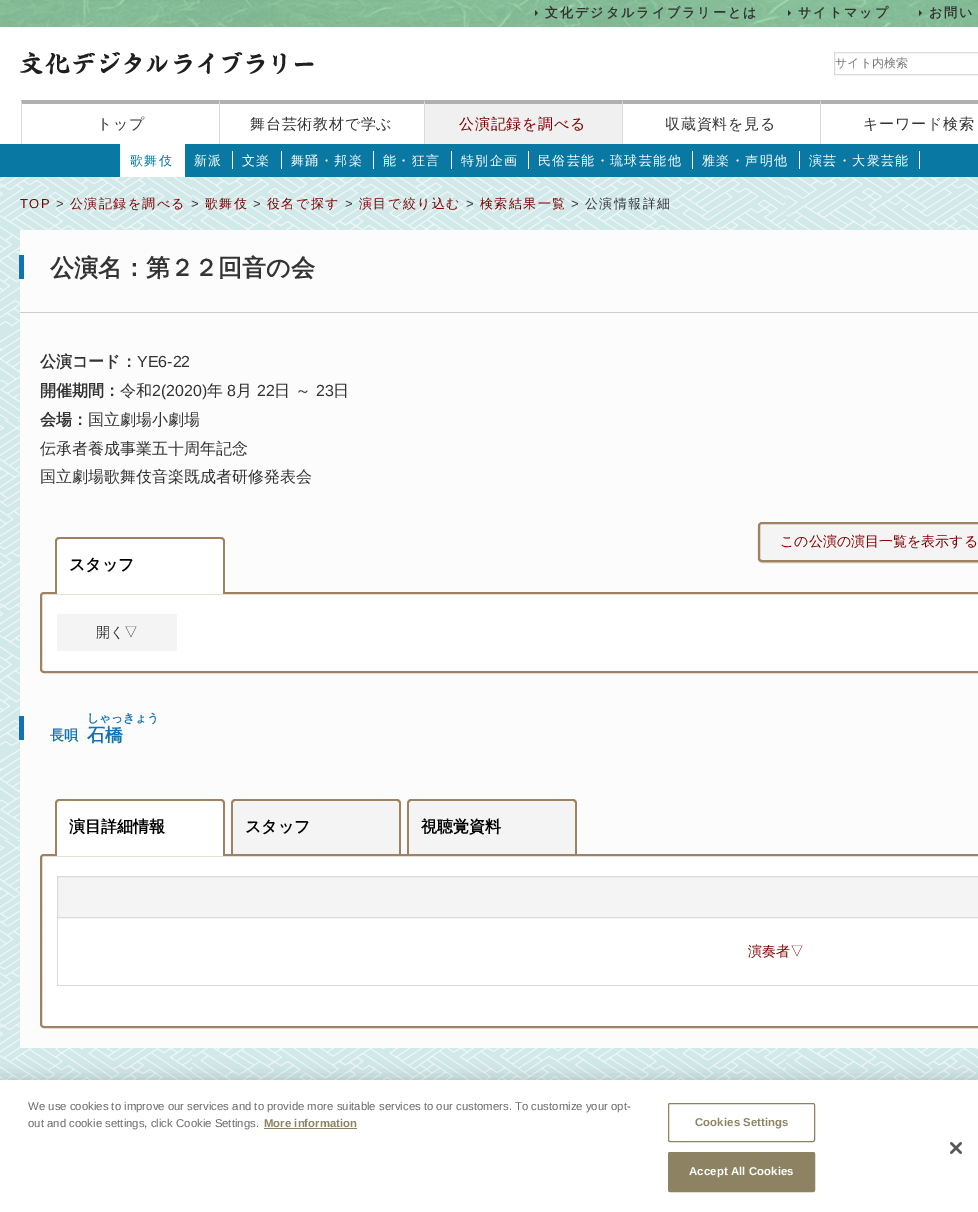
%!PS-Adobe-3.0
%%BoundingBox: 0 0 978 1212
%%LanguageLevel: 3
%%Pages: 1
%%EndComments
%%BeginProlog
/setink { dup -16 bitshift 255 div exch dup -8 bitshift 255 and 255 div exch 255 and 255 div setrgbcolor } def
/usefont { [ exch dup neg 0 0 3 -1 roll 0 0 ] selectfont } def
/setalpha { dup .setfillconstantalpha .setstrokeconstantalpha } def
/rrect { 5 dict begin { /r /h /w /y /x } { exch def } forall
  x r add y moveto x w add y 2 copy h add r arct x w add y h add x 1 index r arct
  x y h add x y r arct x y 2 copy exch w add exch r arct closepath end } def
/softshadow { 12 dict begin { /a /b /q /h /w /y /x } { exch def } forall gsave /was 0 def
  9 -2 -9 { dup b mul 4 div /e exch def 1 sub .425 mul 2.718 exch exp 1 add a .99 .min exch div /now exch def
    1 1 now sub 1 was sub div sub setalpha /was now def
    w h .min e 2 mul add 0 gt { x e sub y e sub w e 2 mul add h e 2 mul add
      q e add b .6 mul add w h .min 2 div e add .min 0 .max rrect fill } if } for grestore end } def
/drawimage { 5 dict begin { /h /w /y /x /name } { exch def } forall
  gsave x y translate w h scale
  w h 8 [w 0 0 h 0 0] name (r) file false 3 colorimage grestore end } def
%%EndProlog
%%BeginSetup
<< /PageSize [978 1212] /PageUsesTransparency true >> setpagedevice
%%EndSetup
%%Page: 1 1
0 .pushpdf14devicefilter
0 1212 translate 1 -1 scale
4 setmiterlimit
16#FFFFFF setink
0 0 978 1212 rectfill
(img1.raw) 0 177 978 903 drawimage
(img2.raw) 0 0 978 27 drawimage
16#333333 setink
535 16 moveto 535 10 lineto 538 13 lineto closepath fill
/WenQuanYiZenHei-Bold 13 usefont
545 17 moveto 2 0 (文化デジタルライブラリーとは) ashow
788 16 moveto 788 10 lineto 791 13 lineto closepath fill
798 17 moveto 2 0 (サイトマップ) ashow
919 16 moveto 919 10 lineto 922 13 lineto closepath fill
929 17 moveto 2 0 (お問い) ashow
(img3.raw) 20 52 294 23 drawimage
16#DADADA setink
834.5 52.5 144 22 rectstroke
/WenQuanYiZenHei-Medium 12 usefont
16#757575 setink
835 67 moveto (サイト内検索) show
16#B0B0B0 setink
21 100 moveto 219 100 lineto 219 104 lineto 22 104 lineto closepath fill
16#DADADA setink
21 144 moveto 21 100 lineto 22 104 lineto 22 144 lineto closepath fill
/WenQuanYiZenHei-Medium 15 usefont
16#333333 setink
97 129 moveto 0.75 0 (トップ) ashow
16#B0B0B0 setink
219 100 moveto 424 100 lineto 424 104 lineto 220 104 lineto closepath fill
16#DADADA setink
219 144 moveto 219 100 lineto 220 104 lineto 220 144 lineto closepath fill
16#333333 setink
250 129 moveto 0.75 0 (舞台芸術教材で学ぶ) ashow
16#B0B0B0 setink
424 100 moveto 622 100 lineto 622 104 lineto 425 104 lineto closepath fill
16#DADADA setink
424 144 moveto 424 100 lineto 425 104 lineto 425 144 lineto closepath fill
16#F0F0F0 setink
425 104 197 40 rectfill
16#800000 setink
459 129 moveto 0.75 0 (公演記録を調べる) ashow
16#B0B0B0 setink
622 100 moveto 820 100 lineto 820 104 lineto 623 104 lineto closepath fill
16#DADADA setink
622 144 moveto 622 100 lineto 623 104 lineto 623 144 lineto closepath fill
16#333333 setink
665 129 moveto 0.75 0 (収蔵資料を見る) ashow
16#B0B0B0 setink
820 100 moveto 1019 100 lineto 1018 104 lineto 821 104 lineto closepath fill
16#DADADA setink
820 144 moveto 820 100 lineto 821 104 lineto 821 144 lineto closepath fill
16#333333 setink
863 129 moveto 0.75 0 (キーワード検索) ashow
16#0979A3 setink
0 144 978 33 rectfill
16#FFFFFF setink
120 144 65 33 rectfill
/WenQuanYiZenHei-Medium 13 usefont
16#0979A3 setink
130 165 moveto 1.4 0 (歌舞伎) ashow
16#FFFFFF setink
194 165 moveto 1.4 0 (新派) ashow
232 151 1 18 rectfill
242 165 moveto 1.4 0 (文楽) ashow
281 151 1 18 rectfill
291 165 moveto 1.4 0 (舞踊・邦楽) ashow
373 151 1 18 rectfill
383 165 moveto 1.4 0 (能・狂言) ashow
451 151 1 18 rectfill
461 165 moveto 1.4 0 (特別企画) ashow
528 151 1 18 rectfill
538 165 moveto 1.4 0 (民俗芸能・琉球芸能他) ashow
692 151 1 18 rectfill
702 165 moveto 1.4 0 (雅楽・声明他) ashow
799 151 1 18 rectfill
809 165 moveto 1.4 0 (演芸・大衆芸能) ashow
919 151 1 18 rectfill
/LiberationSans-Regular 13 usefont
16#800000 setink
20 208 moveto 1.4 0 (TOP) ashow
16#333333 setink
56 208 moveto 1.4 0 (>) ashow
/WenQuanYiZenHei-Medium 13 usefont
16#800000 setink
70 208 moveto 1.4 0 (公演記録を調べる) ashow
/LiberationSans-Regular 13 usefont
16#333333 setink
191 208 moveto 1.4 0 (>) ashow
/WenQuanYiZenHei-Medium 13 usefont
16#800000 setink
205 208 moveto 1.4 0 (歌舞伎) ashow
/LiberationSans-Regular 13 usefont
16#333333 setink
253 208 moveto 1.4 0 (>) ashow
/WenQuanYiZenHei-Medium 13 usefont
16#800000 setink
267 208 moveto 1.4 0 (役名で探す) ashow
/LiberationSans-Regular 13 usefont
16#333333 setink
345 208 moveto 1.4 0 (>) ashow
/WenQuanYiZenHei-Medium 13 usefont
16#800000 setink
359 208 moveto 1.4 0 (演目で絞り込む) ashow
/LiberationSans-Regular 13 usefont
16#333333 setink
466 208 moveto 1.4 0 (>) ashow
/WenQuanYiZenHei-Medium 13 usefont
16#800000 setink
480 208 moveto 1.4 0 (検索結果一覧) ashow
/LiberationSans-Regular 13 usefont
16#333333 setink
571 208 moveto 1.4 0 (>) ashow
/WenQuanYiZenHei-Medium 13 usefont
585 208 moveto 1.4 0 (公演情報詳細) ashow
[
    [20 230 958 818 16#FCFCFC]
    [20 312 958 1 16#CDCDCD]
    [19 255 5 24 16#1273B0]
] { aload pop setink rectfill } forall
/WenQuanYiZenHei-Bold 24 usefont
16#333333 setink
50 276 moveto (公演名：第２２回音の会) show
/WenQuanYiZenHei-Bold 16 usefont
40 367 moveto (公演コード：) show
/LiberationSans-Regular 16 usefont
137 367 moveto (YE6-22) show
/WenQuanYiZenHei-Bold 16 usefont
40 396 moveto (開催期間：) show
/WenQuanYiZenHei-Medium 16 usefont
120 396 moveto (令和) show
/LiberationSans-Regular 16 usefont
152 396 moveto (2\(2020\)) show
/WenQuanYiZenHei-Medium 16 usefont
207 396 moveto (年) show
/LiberationSans-Regular 16 usefont
227 396 moveto (8) show
/WenQuanYiZenHei-Medium 16 usefont
236 396 moveto (月) show
/LiberationSans-Regular 16 usefont
257 396 moveto (22) show
/WenQuanYiZenHei-Medium 16 usefont
274 396 moveto (日 ～) show
/LiberationSans-Regular 16 usefont
316 396 moveto (23) show
/WenQuanYiZenHei-Medium 16 usefont
333 396 moveto (日) show
/WenQuanYiZenHei-Bold 16 usefont
40 425 moveto (会場：) show
/WenQuanYiZenHei-Medium 16 usefont
[
    [(国立劇場小劇場) 88 425]
    [(伝承者養成事業五十周年記念) 40 454]
    [(国立劇場歌舞伎音楽既成者研修発表会) 40 482]
] { aload pop moveto show } forall
16#D2C9BC setink
758 523 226 40 4 0.5 1 softshadow
16#F4F4F4 setink
759 523 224 38 3 rrect gsave fill grestore
16#9F8261 setink
2 setlinewidth
stroke
/WenQuanYiZenHei-Medium 14 usefont
16#800000 setink
780 546 moveto (この公演の演目一覧を表示する) show
16#FFFFFF setink
59 537 moveto 221 537 lineto 223 537 225 539 225 541 curveto 225 592 lineto 55 592 lineto 55 541 lineto 55 539 57 537 59 537 curveto closepath fill
16#9F8261 setink
59 537 moveto 221 537 lineto 223 537 225 539 225 541 curveto 225 592 lineto 55 592 lineto 55 541 lineto 55 539 57 537 59 537 curveto closepath 59 539 moveto 221 539 lineto 222 539 223 540 223 541 curveto 223 592 lineto 57 592 lineto 57 541 lineto 57 540 58 539 59 539 curveto closepath eofill
/WenQuanYiZenHei-Bold 16 usefont
16#000000 setink
69 570 moveto (スタッフ) show
16#FFFFFF setink
41 593 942 79 3 rrect gsave fill grestore
16#9F8261 setink
stroke
16#FFFFFF setink
57 592 166 2 rectfill
16#F4F4F4 setink
57 614 120 37 rectfill
/WenQuanYiZenHei-Medium 14 usefont
16#333333 setink
96 637 moveto (開く▽) show
16#1273B0 setink
19 716 5 24 rectfill
/WenQuanYiZenHei-Bold 14 usefont
50 740 moveto (長唄) show
/WenQuanYiZenHei-Bold 11.75 usefont
87 722 moveto (しゃっきょう) show
/WenQuanYiZenHei-Bold 18 usefont
87 741 moveto (石橋) show
16#FFFFFF setink
59 799 moveto 221 799 lineto 223 799 225 801 225 803 curveto 225 854 lineto 55 854 lineto 55 803 lineto 55 801 57 799 59 799 curveto closepath fill
16#9F8261 setink
59 799 moveto 221 799 lineto 223 799 225 801 225 803 curveto 225 854 lineto 55 854 lineto 55 803 lineto 55 801 57 799 59 799 curveto closepath 59 801 moveto 221 801 lineto 222 801 223 802 223 803 curveto 223 854 lineto 57 854 lineto 57 803 lineto 57 802 58 801 59 801 curveto closepath eofill
/WenQuanYiZenHei-Bold 16 usefont
16#000000 setink
69 832 moveto (演目詳細情報) show
16#FFFFFF setink
41 855 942 172 3 rrect gsave fill grestore
16#9F8261 setink
stroke
16#FFFFFF setink
57 854 166 2 rectfill
16#F4F4F4 setink
235 799 moveto 397 799 lineto 399 799 401 801 401 803 curveto 401 854 lineto 231 854 lineto 231 803 lineto 231 801 233 799 235 799 curveto closepath fill
16#9F8261 setink
235 799 moveto 397 799 lineto 399 799 401 801 401 803 curveto 401 854 lineto 231 854 lineto 231 803 lineto 231 801 233 799 235 799 curveto closepath 235 801 moveto 397 801 lineto 398 801 399 802 399 803 curveto 399 854 lineto 233 854 lineto 233 803 lineto 233 802 234 801 235 801 curveto closepath eofill
16#000000 setink
245 832 moveto (スタッフ) show
16#F4F4F4 setink
411 799 moveto 573 799 lineto 575 799 577 801 577 803 curveto 577 854 lineto 407 854 lineto 407 803 lineto 407 801 409 799 411 799 curveto closepath fill
16#9F8261 setink
411 799 moveto 573 799 lineto 575 799 577 801 577 803 curveto 577 854 lineto 407 854 lineto 407 803 lineto 407 801 409 799 411 799 curveto closepath 411 801 moveto 573 801 lineto 574 801 575 802 575 803 curveto 575 854 lineto 409 854 lineto 409 803 lineto 409 802 410 801 411 801 curveto closepath eofill
16#000000 setink
421 832 moveto (視聴覚資料) show
16#F4F4F4 setink
57.5 876.5 moveto 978.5 876.5 lineto 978.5 917.5 lineto 57.5 917.5 lineto closepath gsave fill grestore
16#DADADA setink
1 setlinewidth
stroke
57 985 921 1 rectfill
57 918 1 68 rectfill
/WenQuanYiZenHei-Medium 14 usefont
16#800000 setink
748 956 moveto (演奏者▽) show
16#000000 setink
0 1080 978 132 0 9 0.2 softshadow
16#FFFFFF setink
0 1080 978 132 rectfill
/LiberationSans-Regular 11.38 usefont
16#696969 setink
28 1110 moveto (We use cookies to improve our services and to provide more suitable services to our customers. To customize your opt-) show
28 1127 moveto (out and cookie settings, click Cookie Settings.) show
/LiberationSans-Bold 11.38 usefont
16#8D8363 setink
264 1127 moveto (More information) show
264 1128 93 1 rectfill
668.5 1103.5 146 38 1.5 rrect stroke
695 1126 moveto 0.1 0 (Cookies Settings) ashow
668.5 1152.5 146 39 1.5 rrect gsave fill grestore
stroke
16#FFFFFF setink
689 1175 moveto 0.1 0 (Accept All Cookies) ashow
(img4.raw) 950 1142 12 12 drawimage
.poppdf14devicefilter showpage
%%EOF
